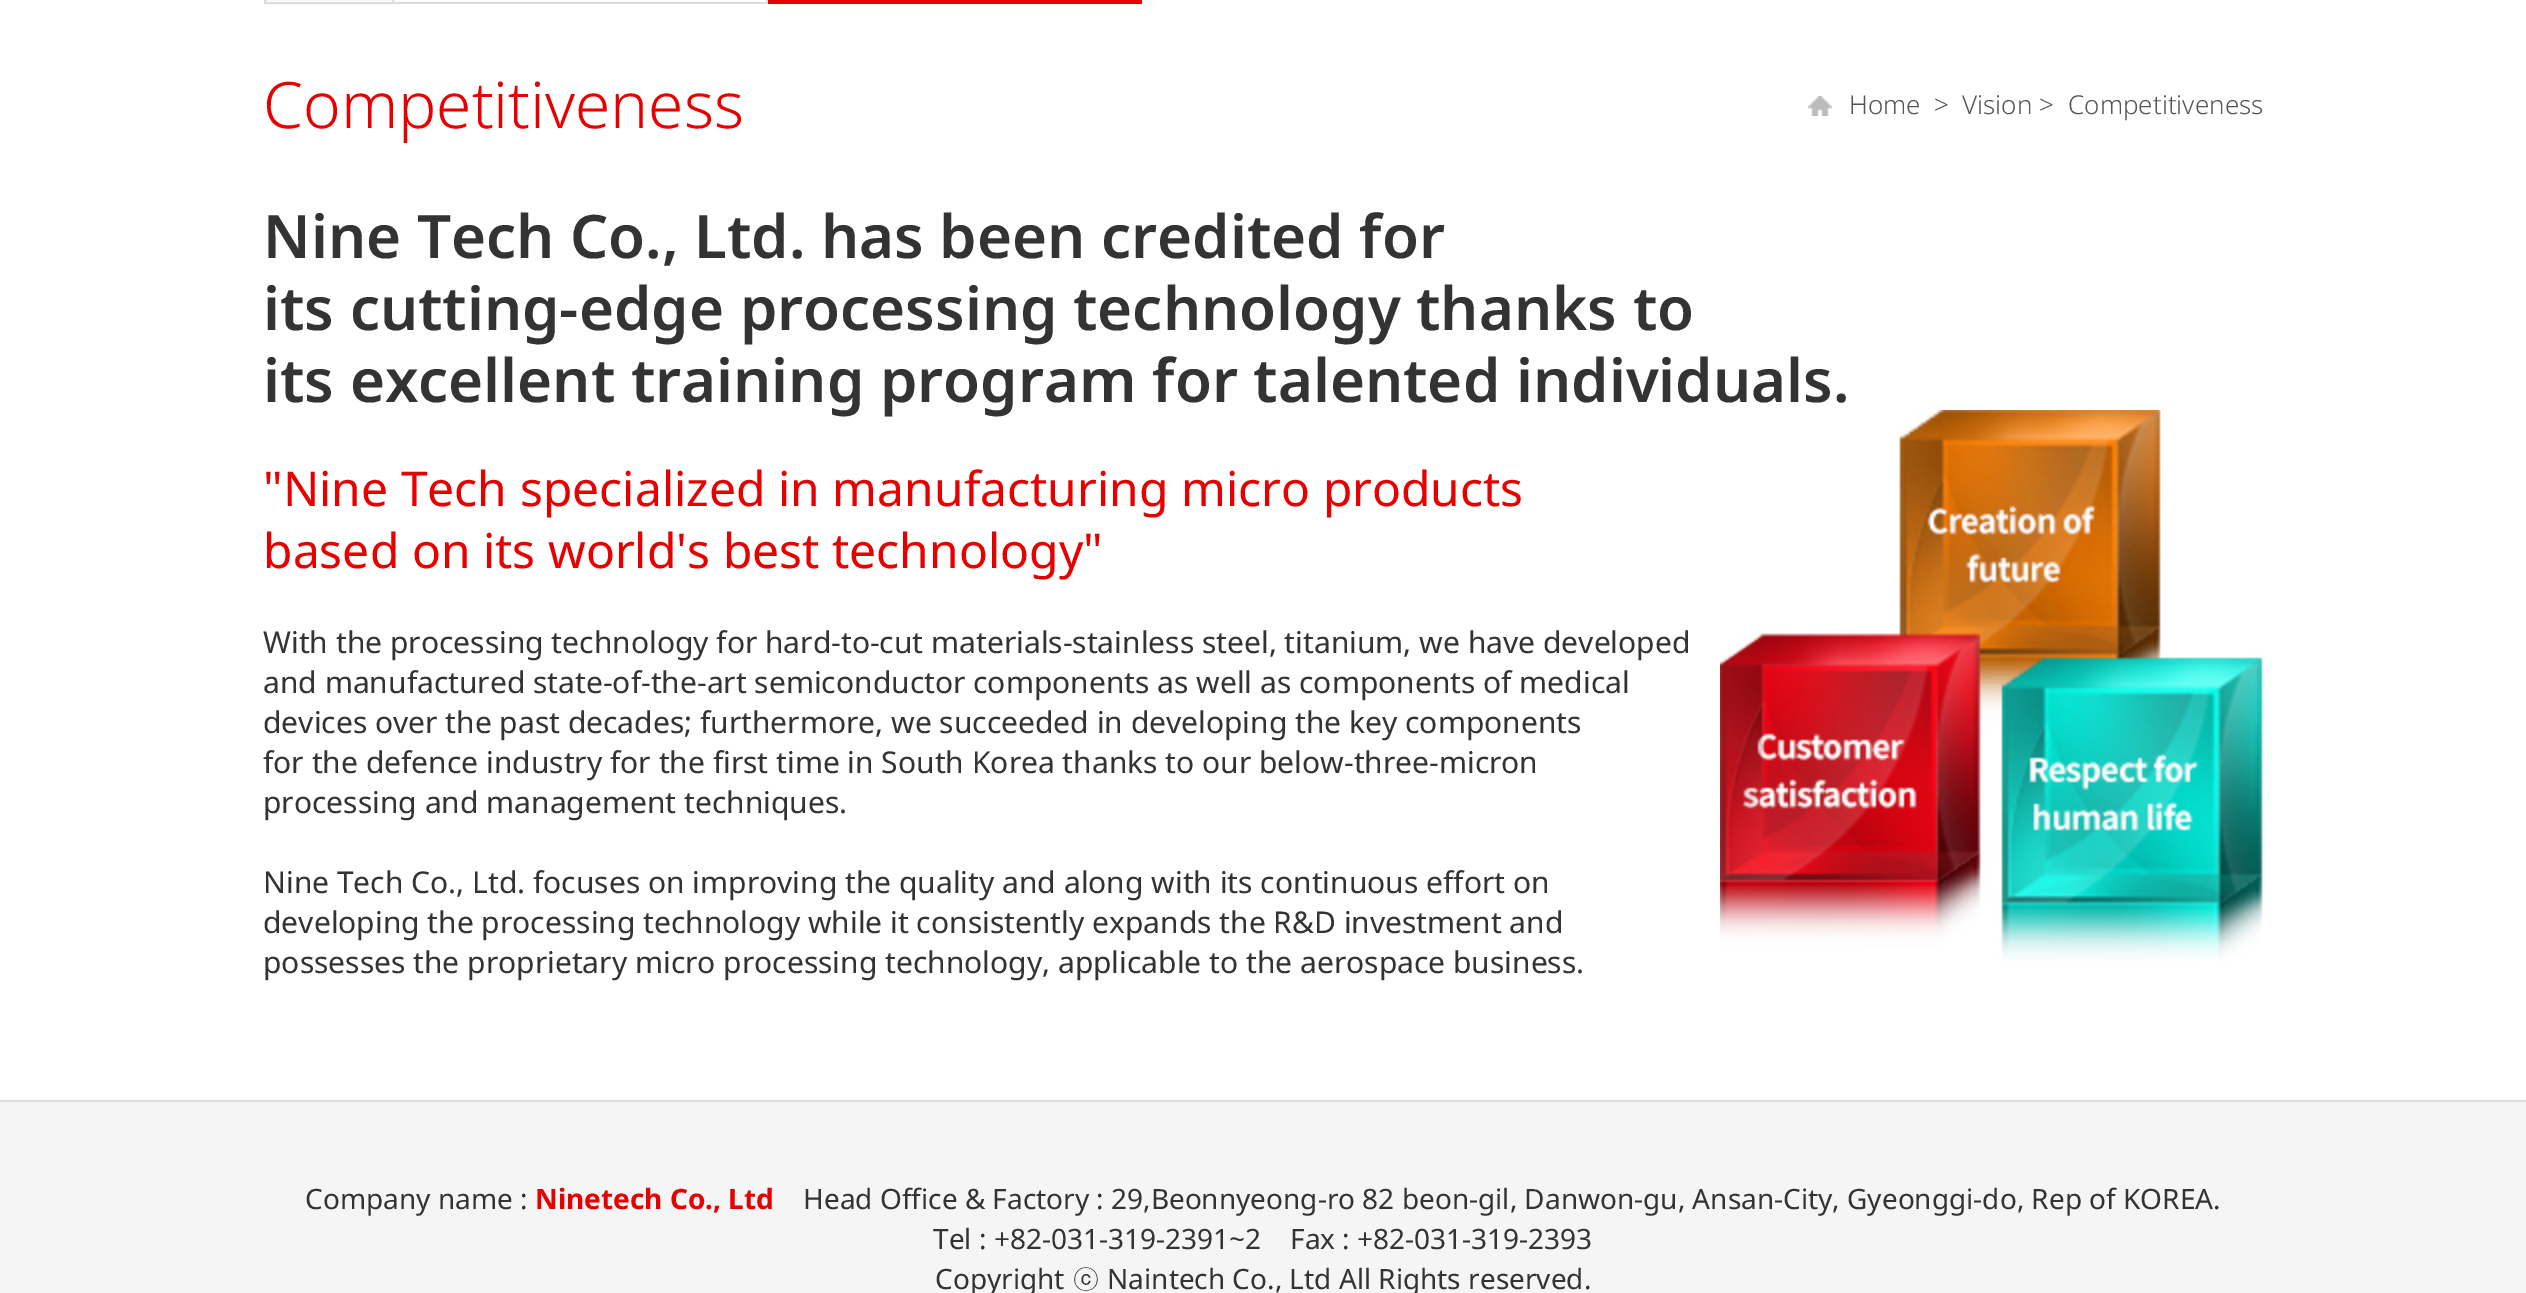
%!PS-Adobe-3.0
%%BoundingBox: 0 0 2526 1293
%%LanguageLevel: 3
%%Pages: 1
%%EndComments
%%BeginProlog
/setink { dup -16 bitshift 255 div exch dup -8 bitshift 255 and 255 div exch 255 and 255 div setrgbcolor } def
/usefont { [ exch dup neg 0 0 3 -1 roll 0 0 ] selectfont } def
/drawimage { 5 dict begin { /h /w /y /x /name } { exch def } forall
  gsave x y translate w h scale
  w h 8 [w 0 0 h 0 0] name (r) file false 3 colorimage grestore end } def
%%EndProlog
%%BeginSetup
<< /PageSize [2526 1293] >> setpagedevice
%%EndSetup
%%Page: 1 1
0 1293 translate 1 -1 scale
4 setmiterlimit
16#FFFFFF setink
0 0 2526 1293 rectfill
16#DDDDDD setink
2 setlinewidth
265 -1 128 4 rectstroke
[
    [766 0 2 4 16#DDDDDD]
    [394 2 374 2 16#DDDDDD]
    [768 0 374 4 16#E70000]
] { aload pop setink rectfill } forall
/NotoSans-Light 64 usefont
263 128 moveto (Competitiveness) show
(img1.raw) 1808 96 24 20 drawimage
/NotoSans-Light 26 usefont
16#555555 setink
[
    [(Home) 1849 114]
    [(>) 1934 114]
    [(Vision >) 1962 114]
    [(Competitiveness) 2068 114]
] { aload pop moveto show } forall
(img2.raw) 1720 410 543 551 drawimage
/NotoSans-SemiBold 60 usefont
16#333333 setink
[
    [(Nine Tech Co., Ltd. has been credited for) 263 258]
    [(its cutting-edge processing technology thanks to) 263 330]
    [(its excellent training program for talented individuals.) 263 402]
] { aload pop moveto show } forall
/NotoSans-Regular 48 usefont
16#E70000 setink
263 506 moveto ("Nine Tech specialized in manufacturing micro products) show
263 568 moveto (based on its world's best technology") show
/NotoSans-Regular 30 usefont
16#333333 setink
[
    [(With the processing technology for hard-to-cut materials-stainless steel, titanium, we have developed) 263 653]
    [(and manufactured state-of-the-art semiconductor components as well as components of medical) 263 693]
    [(devices over the past decades; furthermore, we succeeded in developing the key components) 263 733]
    [(for the defence industry for the first time in South Korea thanks to our below-three-micron) 263 773]
    [(processing and management techniques.) 263 813]
    [(Nine Tech Co., Ltd. focuses on improving the quality and along with its continuous effort on) 263 893]
    [(developing the processing technology while it consistently expands the R&D investment and) 263 933]
    [(possesses the proprietary micro processing technology, applicable to the aerospace business.) 263 973]
] { aload pop moveto show } forall
16#F5F5F5 setink
0 1102 2526 191 rectfill
16#DDDDDD setink
0 1100 2526 2 rectfill
/NotoSans-Regular 28 usefont
16#333333 setink
305 1209 moveto (Company name :) show
/NotoSans-Bold 28 usefont
16#E70000 setink
535 1209 moveto (Ninetech Co., Ltd) show
/NotoSans-Regular 28 usefont
16#333333 setink
[
    [(Head Office & Factory : 29,Beonnyeong-ro 82 beon-gil, Danwon-gu, Ansan-City, Gyeonggi-do, Rep of KOREA.) 803 1209]
    [(Tel : +82-031-319-2391~2    Fax : +82-031-319-2393) 933 1249]
    [(Copyright) 935 1289]
] { aload pop moveto show } forall
/Dotum-Regular 28 usefont
1072 1289 moveto (ⓒ) show
/NotoSans-Regular 28 usefont
1107 1289 moveto (Naintech Co., Ltd All Rights reserved.) show
showpage
%%EOF
